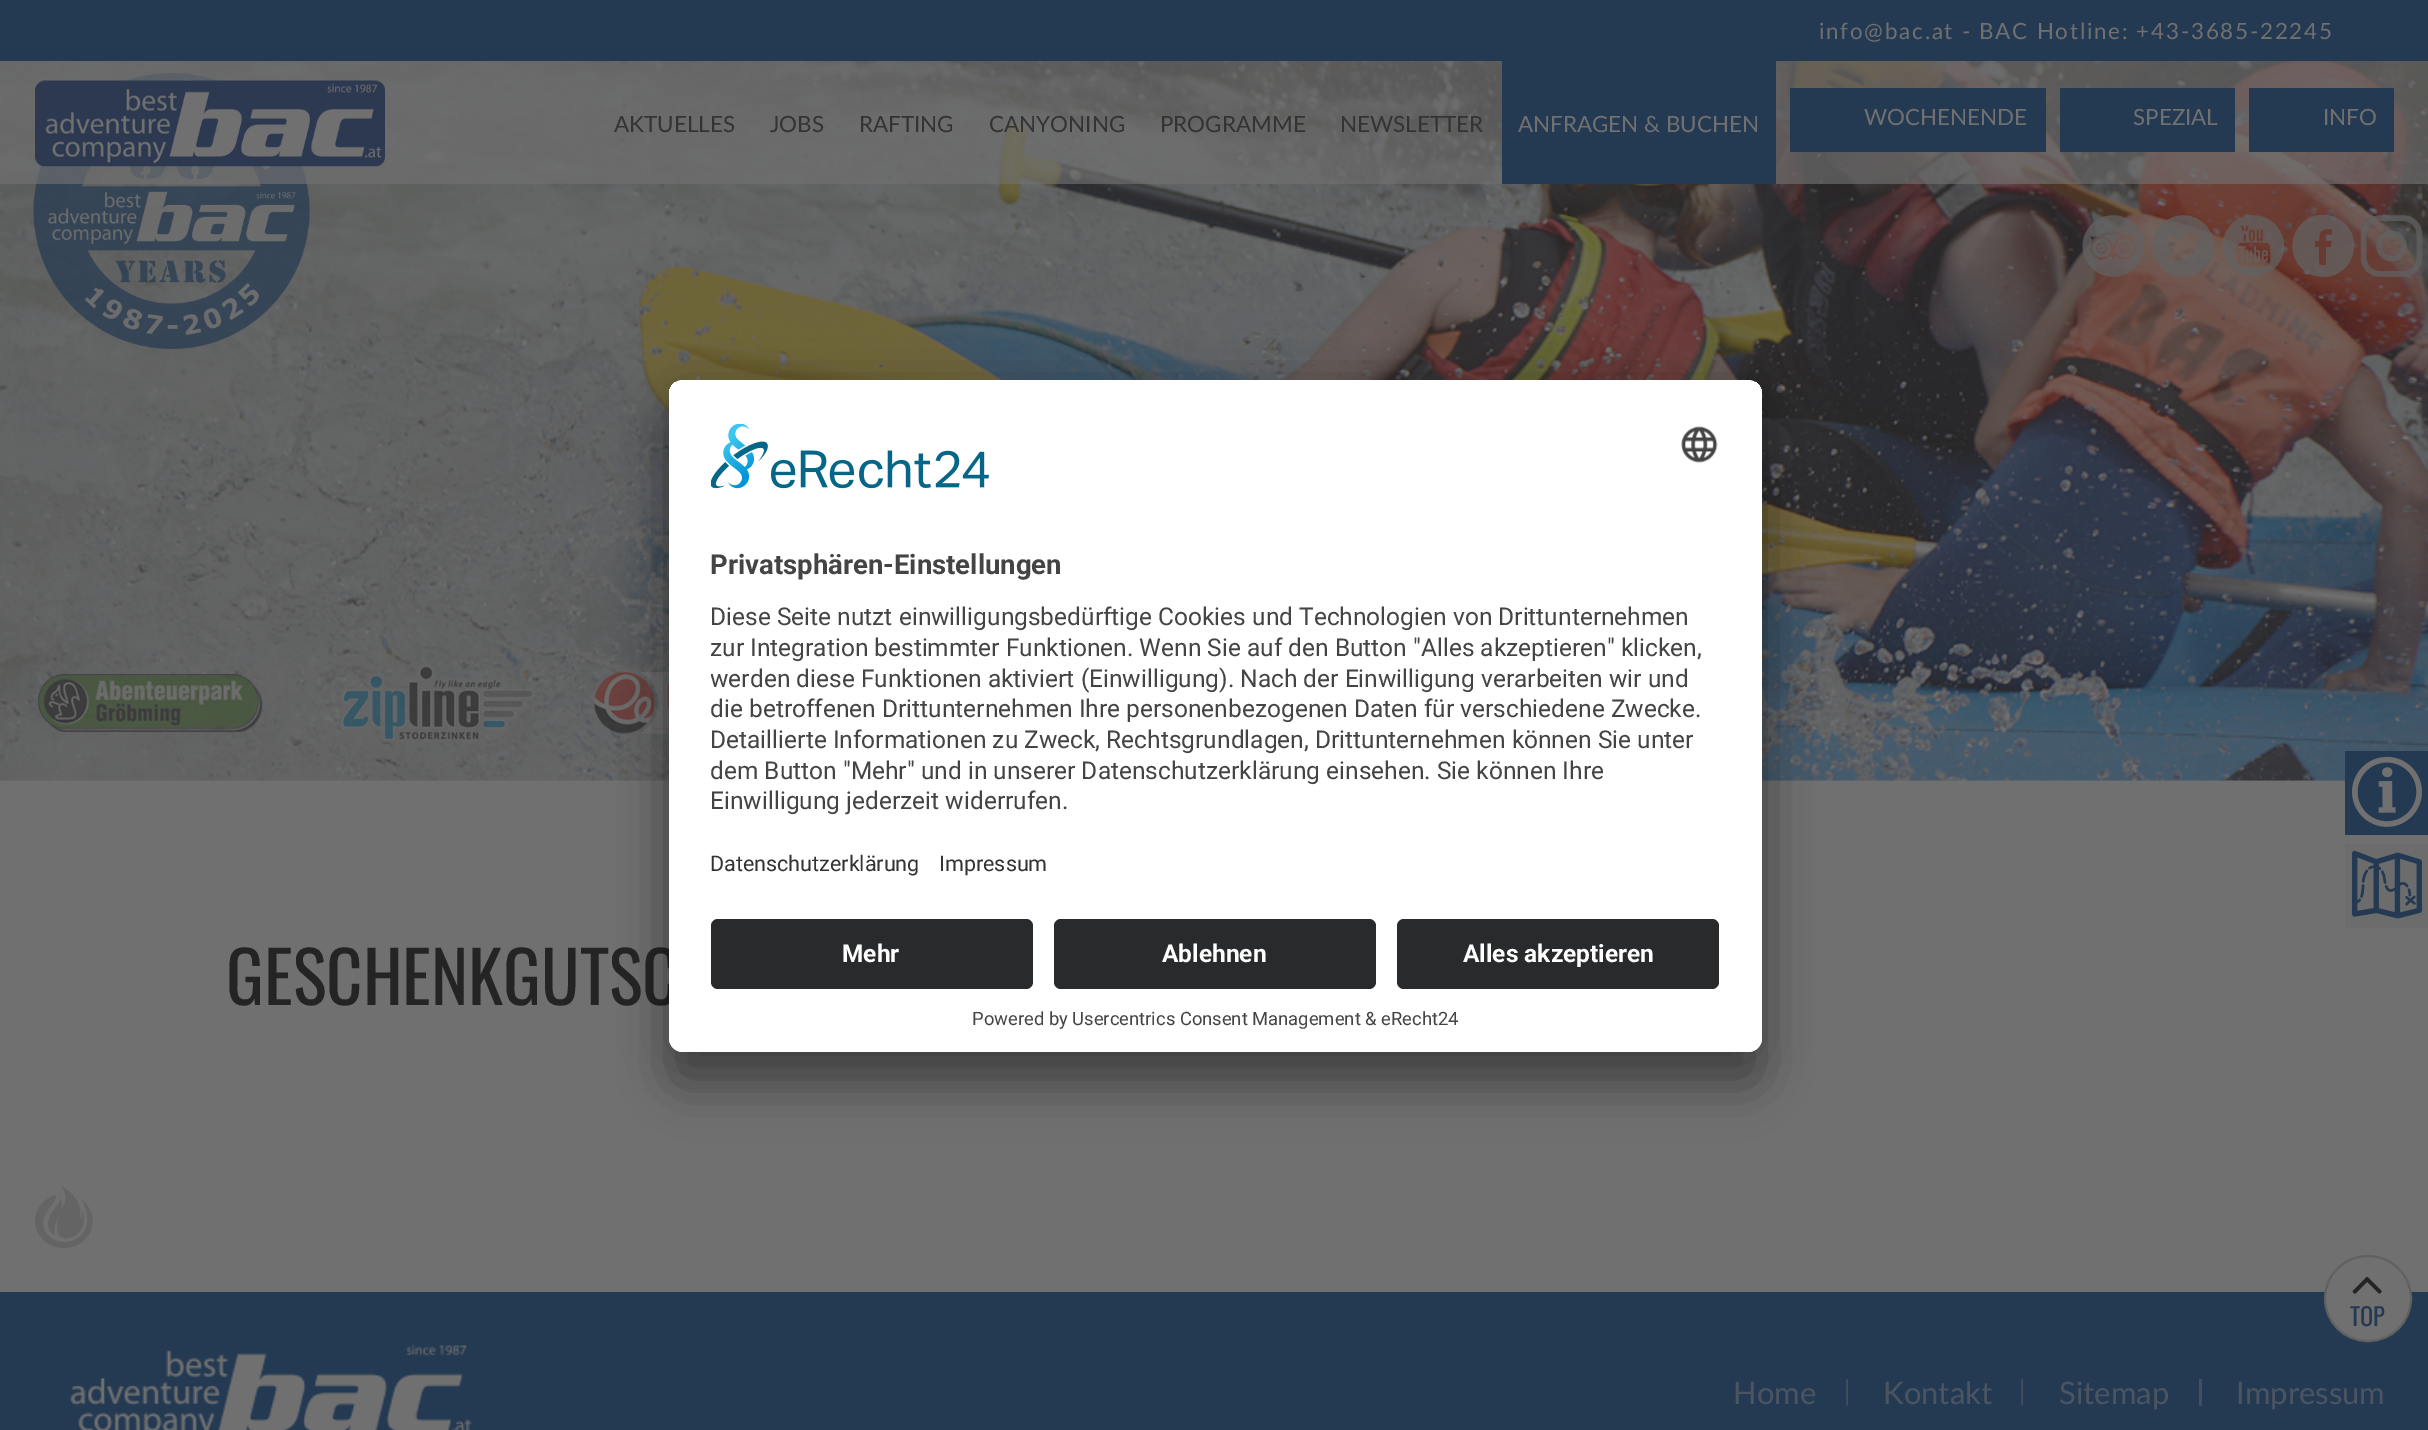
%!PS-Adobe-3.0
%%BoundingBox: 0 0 2428 1430
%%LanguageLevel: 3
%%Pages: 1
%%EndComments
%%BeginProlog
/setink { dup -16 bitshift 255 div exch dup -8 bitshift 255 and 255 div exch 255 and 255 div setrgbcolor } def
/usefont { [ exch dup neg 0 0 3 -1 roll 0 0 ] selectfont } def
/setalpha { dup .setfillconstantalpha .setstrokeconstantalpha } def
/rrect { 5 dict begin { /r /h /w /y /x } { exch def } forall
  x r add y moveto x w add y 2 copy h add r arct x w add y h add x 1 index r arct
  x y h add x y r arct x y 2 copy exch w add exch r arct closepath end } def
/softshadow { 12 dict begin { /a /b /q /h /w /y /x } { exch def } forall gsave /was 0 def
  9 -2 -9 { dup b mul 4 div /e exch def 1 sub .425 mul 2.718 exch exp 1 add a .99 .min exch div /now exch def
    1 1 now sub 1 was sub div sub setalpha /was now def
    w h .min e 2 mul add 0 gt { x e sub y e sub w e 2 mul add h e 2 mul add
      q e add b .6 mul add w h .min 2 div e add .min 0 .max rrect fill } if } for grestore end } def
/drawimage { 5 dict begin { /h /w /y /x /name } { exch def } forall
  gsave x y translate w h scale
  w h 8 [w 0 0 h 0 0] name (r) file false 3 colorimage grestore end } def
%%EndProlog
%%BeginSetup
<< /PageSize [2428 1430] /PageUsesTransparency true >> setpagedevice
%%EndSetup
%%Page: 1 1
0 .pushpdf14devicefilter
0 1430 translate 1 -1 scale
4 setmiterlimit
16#707070 setink
0 0 2428 1430 rectfill
16#243952 setink
0 0 2428 61 rectfill
/Lato-Regular 22.4 usefont
16#707070 setink
1819 39 moveto 1.75 0 (info@bac.at - BAC Hotline: +43-3685-22245) ashow
(img1.raw) 0 61 2428 720 drawimage
(img2.raw) 33 73 277 276 drawimage
(img3.raw) 2082 215 62 62 drawimage
(img4.raw) 2152 215 62 62 drawimage
(img5.raw) 2222 215 63 62 drawimage
0.75 setalpha
16#626262 setink
2323 215 moveto 2294 215 2281 253 2305 271 curveto 2310 275 2317 277 2323 277 curveto 2353 277 2365 239 2342 221 curveto 2336 217 2330 215 2323 215 curveto closepath 2331 247 moveto 2326 247 lineto 2326 265 lineto 2319 265 lineto 2319 247 lineto 2315 247 lineto 2315 241 lineto 2319 241 lineto 2319 230 2321 229 2332 229 curveto 2332 235 lineto 2326 235 2326 234 2326 241 curveto 2332 241 lineto closepath fill
1 setalpha
(img6.raw) 2360 215 63 62 drawimage
(img7.raw) 38 674 225 58 drawimage
(img8.raw) 339 663 197 80 drawimage
(img9.raw) 594 672 75 62 drawimage
0.65 setalpha
16#707070 setink
0 61 2428 123 rectfill
1 setalpha
(img10.raw) 35 80 350 87 drawimage
16#333333 setink
[
    [(AKTUELLES) 614 132]
    [(JOBS) 770 132]
    [(RAFTING) 859 132]
    [(CANYONING) 989 132]
    [(PROGRAMME) 1160 132]
    [(NEWSLETTER) 1340 132]
] { aload pop moveto show } forall
16#243952 setink
1502 61 274 123 rectfill
16#707070 setink
1518 132 moveto (ANFRAGEN & BUCHEN) show
16#243952 setink
1790 88 256 64 rectfill
16#707070 setink
1864 125 moveto (WOCHENENDE) show
16#243952 setink
2060 88 175 64 rectfill
16#707070 setink
2133 125 moveto (SPEZIAL) show
16#243952 setink
2249 88 145 64 rectfill
16#707070 setink
2323 125 moveto (INFO) show
16#243952 setink
2345 751 83 84 rectfill
(img11.raw) 2352 756 70 71 drawimage
16#6C6C6C setink
2345 844 83 84 rectfill
(img12.raw) 2352 850 70 69 drawimage
/Oswald-Regular 70.75 usefont
16#242424 setink
226 1005 moveto (GESCHENKGUTSC) show
16#243952 setink
0 1292 2428 138 rectfill
(img13.raw) 35 1186 58 62 drawimage
16#707070 setink
2325 1256 86 85 42.5 rrect gsave fill grestore
16#616161 setink
2 setlinewidth
stroke
(img14.raw) 2352 1276 30 18 drawimage
/Oswald-Regular 24.5 usefont
16#243952 setink
2350 1326 moveto (TOP) show
(img15.raw) 70 1343 403 87 drawimage
/Lato-Regular 31 usefont
16#4A5561 setink
1733 1404 moveto (Home) show
(img16.raw) 1846 1379 2 27 drawimage
1883 1404 moveto (Kontakt) show
(img16.raw) 2021 1379 2 27 drawimage
2059 1404 moveto (Sitemap) show
16#434F5E setink
2199 1379 3 27 rectfill
16#4A5561 setink
2236 1404 moveto (Impressum) show
16#000000 setink
669 415 1093 672 14 24.5 0.3 softshadow
669 389 1093 672 14 23 0.22 softshadow
16#FFFFFF setink
669 380 1093 672 14 rrect fill
gsave
669 380 1093 672 14 rrect clip newpath
683 380 moveto 1748 380 lineto 1755.5 380 1762 386.5 1762 394 curveto 1762 905 lineto 669 905 lineto 669 394 lineto 669 386.5 675.5 380 683 380 curveto closepath clip newpath
669 382 1093 523 rectfill
grestore
(img17.raw) 711 424 278 65 drawimage
(img18.raw) 1681 426 37 37 drawimage
/Roboto-Bold 27.5 usefont
16#444444 setink
710 574 moveto (Privatsphären-Einstellungen) show
/Roboto-Regular 24.5 usefont
710 625 moveto (Diese Seite nutzt einwilligungsbedürftige Cookies und Technologien von Drittunternehmen) show
gsave
711 595 1009 229 rectclip
[
    [(zur Integration bestimmter Funktionen. Wenn Sie auf den Button "Alles akzeptieren" klicken,) 710 656]
    [(werden diese Funktionen aktiviert \(Einwilligung\). Nach der Einwilligung verarbeiten wir und) 710 687]
    [(die betroffenen Drittunternehmen Ihre personenbezogenen Daten für verschiedene Zwecke.) 710 717]
] { aload pop moveto show } forall
grestore
710 748 moveto (Detaillierte Informationen zu Zweck, Rechtsgrundlagen, Drittunternehmen können Sie unter) show
gsave
711 595 1009 229 rectclip
710 779 moveto (dem Button "Mehr" und in unserer Datenschutzerklärung einsehen. Sie können Ihre) show
grestore
710 809 moveto (Einwilligung jederzeit widerrufen.) show
/Roboto-Regular 21.5 usefont
16#333333 setink
710 871 moveto (Datenschutzerklärung) show
939 871 moveto (Impressum) show
16#FFFFFF setink
669 905 moveto 1762 905 lineto 1762 1038 lineto 1762 1045.5 1755.5 1052 1748 1052 curveto 683 1052 lineto 675.5 1052 669 1045.5 669 1038 curveto closepath fill
16#292A2B setink
711 919 322 70 7 rrect fill
/Roboto-Bold 24.5 usefont
16#FFFFFF setink
842 962 moveto (Mehr) show
16#292A2B setink
1054 919 322 70 7 rrect fill
16#FFFFFF setink
1162 962 moveto (Ablehnen) show
16#292A2B setink
1397 919 322 70 7 rrect fill
16#FFFFFF setink
1463 962 moveto (Alles akzeptieren) show
/Roboto-Regular 18.4 usefont
16#444444 setink
972 1025 moveto (Powered by Usercentrics Consent Management & eRecht24) show
.poppdf14devicefilter showpage
%%EOF
